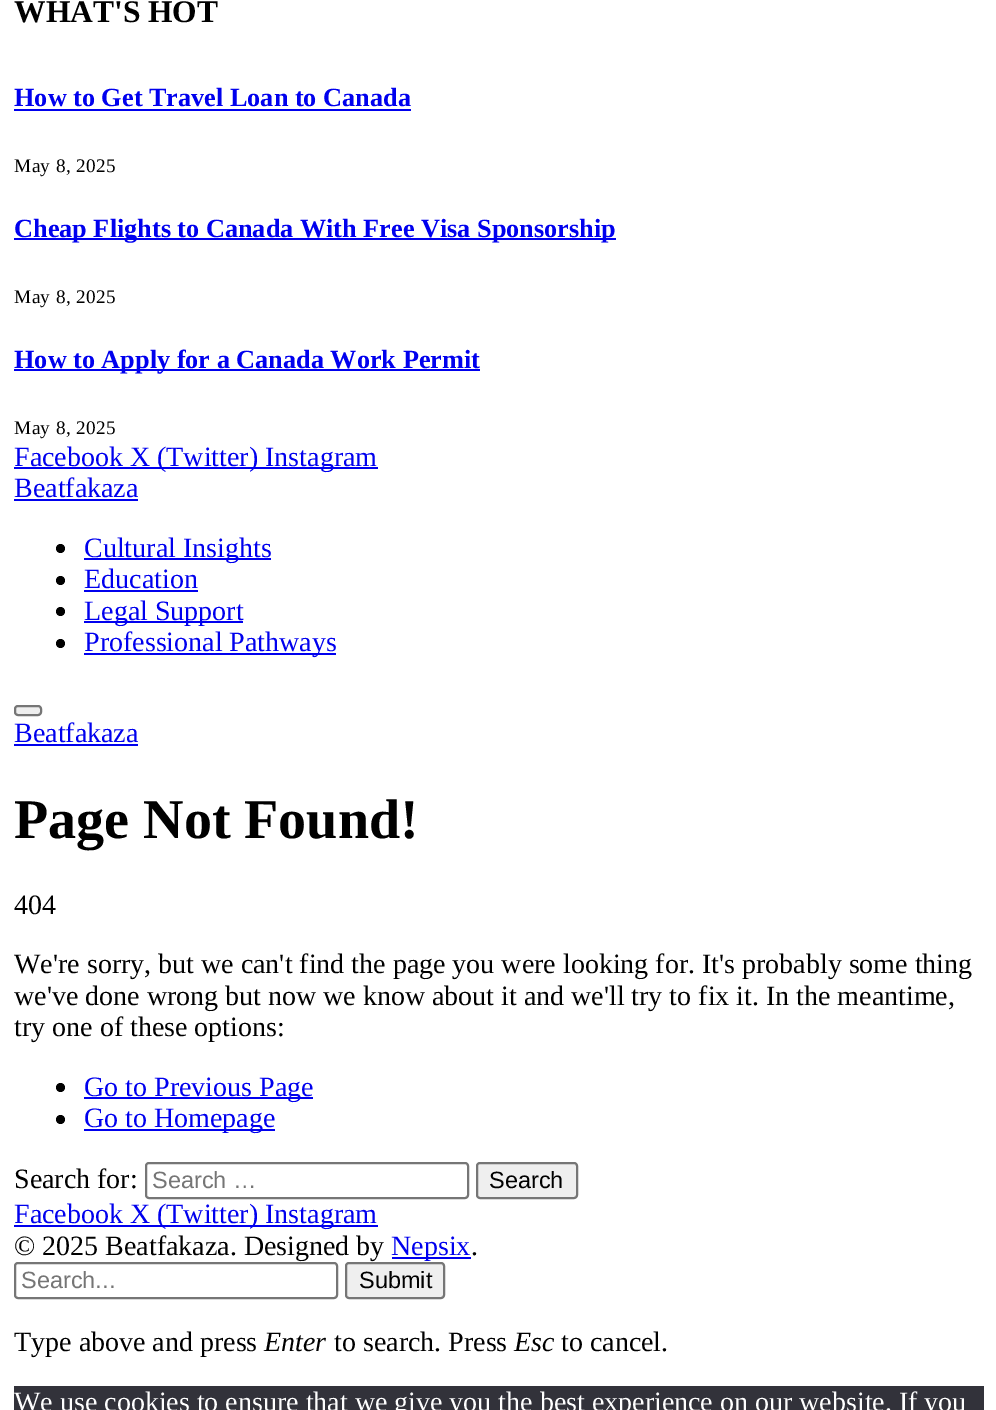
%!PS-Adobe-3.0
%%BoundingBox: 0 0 996 1410
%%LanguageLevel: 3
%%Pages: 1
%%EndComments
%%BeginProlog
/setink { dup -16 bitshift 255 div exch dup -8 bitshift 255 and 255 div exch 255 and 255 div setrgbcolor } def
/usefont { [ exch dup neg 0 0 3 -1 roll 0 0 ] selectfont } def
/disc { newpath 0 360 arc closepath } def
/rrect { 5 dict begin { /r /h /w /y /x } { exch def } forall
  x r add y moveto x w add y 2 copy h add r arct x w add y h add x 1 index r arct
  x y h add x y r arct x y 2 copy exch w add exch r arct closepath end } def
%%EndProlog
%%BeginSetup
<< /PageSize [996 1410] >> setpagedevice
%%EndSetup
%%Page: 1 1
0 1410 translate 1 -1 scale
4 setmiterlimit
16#FFFFFF setink
0 0 996 1410 rectfill
/LiberationSerif-Bold 31.5 usefont
16#000000 setink
14 22 moveto (WHAT'S HOT) show
/LiberationSerif-Bold 26.25 usefont
16#0000EE setink
14 106 moveto (How to Get Travel Loan to Canada) show
14 109 397 2 rectfill
/LiberationSerif-Regular 19.25 usefont
16#000000 setink
14 172 moveto 0.4 0 (May 8, 2025) ashow
16#0000EE setink
14 238 602 2 rectfill
/LiberationSerif-Bold 26.25 usefont
14 237 moveto (Cheap Flights to Canada With Free Visa Sponsorship) show
/LiberationSerif-Regular 19.25 usefont
16#000000 setink
14 303 moveto 0.4 0 (May 8, 2025) ashow
16#0000EE setink
14 369 466 2 rectfill
/LiberationSerif-Bold 26.25 usefont
14 368 moveto (How to Apply for a Canada Work Permit) show
/LiberationSerif-Regular 19.25 usefont
16#000000 setink
14 434 moveto 0.4 0 (May 8, 2025) ashow
16#0000EE setink
14 467 364 2 rectfill
/LiberationSerif-Regular 28 usefont
14 466 moveto (Facebook X \(Twitter\) Instagram) show
14 497 moveto (Beatfakaza) show
14 499 124 2 rectfill
16#000000 setink
60.5 548.5 4.5 disc fill
16#0000EE setink
84 558 187 2 rectfill
84 557 moveto (Cultural Insights) show
16#000000 setink
60.5 580.5 4.5 disc fill
16#0000EE setink
84 588 moveto (Education) show
84 590 114 2 rectfill
16#000000 setink
60.5 611.5 4.5 disc fill
16#0000EE setink
84 621 159 2 rectfill
84 620 moveto (Legal Support) show
16#000000 setink
60.5 643.5 4.5 disc fill
16#0000EE setink
84 653 252 2 rectfill
84 651 moveto (Professional Pathways) show
16#EFEFEF setink
15 706 26 9 3 rrect gsave fill grestore
16#767676 setink
2 setlinewidth
stroke
16#0000EE setink
14 742 moveto (Beatfakaza) show
14 744 124 2 rectfill
/LiberationSerif-Bold 56 usefont
16#000000 setink
14 838 moveto (Page Not Found!) show
/LiberationSerif-Regular 28 usefont
[
    [(404) 14 914]
    [(We're sorry, but we can't find the page you were looking for. It's probably some thing) 14 973]
    [(we've done wrong but now we know about it and we'll try to fix it. In the meantime,) 14 1005]
    [(try one of these options:) 14 1036]
] { aload pop moveto show } forall
60.5 1087.5 4.5 disc fill
16#0000EE setink
84 1097 229 2 rectfill
84 1096 moveto (Go to Previous Page) show
16#000000 setink
60.5 1119.5 4.5 disc fill
16#0000EE setink
84 1129 191 2 rectfill
84 1127 moveto (Go to Homepage) show
16#000000 setink
14 1188 moveto (Search for:) show
16#767676 setink
146 1163 322 35 3 rrect stroke
/LiberationSans-Regular 23.5 usefont
16#757575 setink
152 1188 moveto (Search …) show
16#EFEFEF setink
477 1163 100 35 3 rrect gsave fill grestore
16#767676 setink
stroke
16#000000 setink
489 1188 moveto (Search) show
16#0000EE setink
14 1225 364 2 rectfill
/LiberationSerif-Regular 28 usefont
14 1223 moveto (Facebook X \(Twitter\) Instagram) show
16#000000 setink
14 1255 moveto (© 2025 Beatfakaza. Designed by) show
16#0000EE setink
392 1257 79 2 rectfill
391 1255 moveto (Nepsix) show
16#000000 setink
471 1255 moveto (.) show
16#767676 setink
15 1263 322 35 3 rrect stroke
/LiberationSans-Regular 23.5 usefont
16#757575 setink
21 1288 moveto (Search...) show
16#EFEFEF setink
346 1263 98 35 3 rrect gsave fill grestore
16#767676 setink
stroke
16#000000 setink
359 1288 moveto (Submit) show
/LiberationSerif-Regular 28 usefont
14 1351 moveto (Type above and press) show
/LiberationSerif-Italic 28 usefont
264 1351 moveto (Enter) show
/LiberationSerif-Regular 28 usefont
334 1351 moveto (to search. Press) show
/LiberationSerif-Italic 28 usefont
514 1351 moveto (Esc) show
/LiberationSerif-Regular 28 usefont
561 1351 moveto (to cancel.) show
16#32323A setink
14 1386 970 24 rectfill
16#FFFFFF setink
14 1411 moveto (We use cookies to ensure that we give you the best experience on our website. If you) show
showpage
%%EOF
